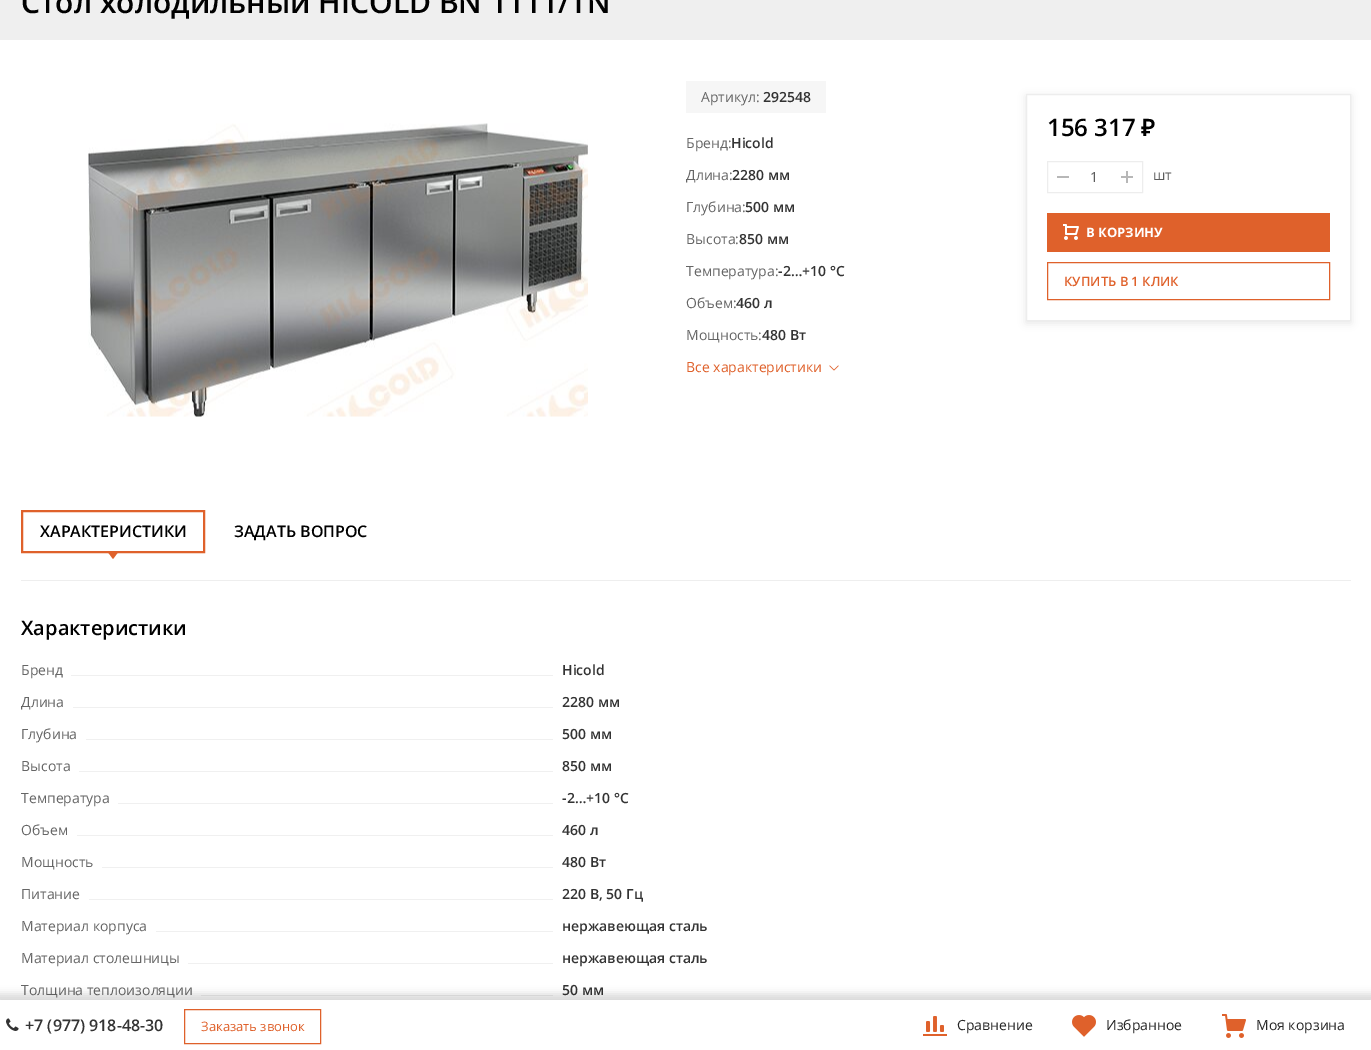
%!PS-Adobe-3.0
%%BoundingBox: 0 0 1371 1050
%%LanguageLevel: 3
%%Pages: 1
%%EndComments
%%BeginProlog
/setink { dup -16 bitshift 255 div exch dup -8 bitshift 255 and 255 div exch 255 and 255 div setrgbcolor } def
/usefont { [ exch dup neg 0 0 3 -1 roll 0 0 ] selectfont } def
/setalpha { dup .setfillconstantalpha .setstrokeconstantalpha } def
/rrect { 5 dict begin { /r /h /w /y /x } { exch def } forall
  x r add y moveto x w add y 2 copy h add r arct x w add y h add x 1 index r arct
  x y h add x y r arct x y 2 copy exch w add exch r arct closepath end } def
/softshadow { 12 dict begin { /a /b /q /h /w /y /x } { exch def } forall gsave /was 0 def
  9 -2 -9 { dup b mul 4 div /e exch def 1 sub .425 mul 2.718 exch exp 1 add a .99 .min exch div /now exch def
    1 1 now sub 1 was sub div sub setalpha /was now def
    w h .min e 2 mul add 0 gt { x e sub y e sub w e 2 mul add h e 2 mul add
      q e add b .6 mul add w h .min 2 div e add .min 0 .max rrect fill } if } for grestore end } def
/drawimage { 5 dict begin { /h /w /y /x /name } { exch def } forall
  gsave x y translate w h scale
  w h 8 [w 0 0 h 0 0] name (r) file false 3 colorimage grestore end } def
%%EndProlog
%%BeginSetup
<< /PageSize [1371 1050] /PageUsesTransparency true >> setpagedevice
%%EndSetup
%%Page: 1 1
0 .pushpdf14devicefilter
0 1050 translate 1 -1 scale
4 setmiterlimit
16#FFFFFF setink
0 0 1371 1050 rectfill
16#EFEFEF setink
0 0 1371 40 rectfill
/OpenSans-SemiBold 30 usefont
16#000000 setink
21 13 moveto (Стол холодильный HICOLD BN 1111/TN) show
(img1.raw) 88 123 500 294 drawimage
16#F6F6F6 setink
686 81 140 32 rectfill
/OpenSans-Regular 14 usefont
16#666666 setink
701 102 moveto (Артикул:) show
/OpenSans-SemiBold 14 usefont
16#333333 setink
763 102 moveto (292548) show
/OpenSans-Regular 14 usefont
16#666666 setink
686 148 moveto (Бренд:) show
/OpenSans-SemiBold 14 usefont
16#333333 setink
731 148 moveto (Hicold) show
/OpenSans-Regular 14 usefont
16#666666 setink
686 180 moveto (Длина:) show
/OpenSans-SemiBold 14 usefont
16#333333 setink
732 180 moveto (2280 мм) show
/OpenSans-Regular 14 usefont
16#666666 setink
686 212 moveto (Глубина:) show
/OpenSans-SemiBold 14 usefont
16#333333 setink
745 212 moveto (500 мм) show
/OpenSans-Regular 14 usefont
16#666666 setink
686 244 moveto (Высота:) show
/OpenSans-SemiBold 14 usefont
16#333333 setink
739 244 moveto (850 мм) show
/OpenSans-Regular 14 usefont
16#666666 setink
686 276 moveto (Температура:) show
/OpenSans-SemiBold 14 usefont
16#333333 setink
778 276 moveto (-2…+10 °С) show
/OpenSans-Regular 14 usefont
16#666666 setink
686 308 moveto (Объем:) show
/OpenSans-SemiBold 14 usefont
16#333333 setink
736 308 moveto (460 л) show
/OpenSans-Regular 14 usefont
16#666666 setink
686 340 moveto (Мощность:) show
/OpenSans-SemiBold 14 usefont
16#333333 setink
762 340 moveto (480 Вт) show
/OpenSans-Regular 14 usefont
16#DF612B setink
686 372 moveto (Все характеристики) show
(img2.raw) 829 365 10 6 drawimage
gsave
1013 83 moveto 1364 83 lineto 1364 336 lineto 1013 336 lineto closepath 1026 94 moveto 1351 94 lineto 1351 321 lineto 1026 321 lineto closepath eoclip newpath
16#000000 setink
1026 96 325 227 0 4 0.1 softshadow
grestore
16#EDEDED setink
1026.5 94.5 324 226 rectstroke
/OpenSans-SemiBold 24 usefont
16#000000 setink
1047 136 moveto (156 317) show
/NotoSans-SemiBold 24 usefont
1141 136 moveto (₽) show
16#EDEDED setink
1047.5 161.5 95 31 rectstroke
16#B7B7B7 setink
1057 176 12 2 rectfill
/OpenSans-Regular 14 usefont
16#5C5C5C setink
1090 182 moveto (1) show
16#B7B7B7 setink
1121 176 12 2 rectfill
1126 171 2 12 rectfill
16#5C5C5C setink
1153 180 moveto (шт) show
16#DF612B setink
1047 213 283 39 rectfill
(img3.raw) 1063 224 16 16 drawimage
/OpenSans-Bold 13 usefont
16#FFFFFF setink
1086 237 moveto (В КОРЗИНУ) show
16#DF612B setink
1047.5 262.5 282 37 rectstroke
/OpenSans-SemiBold 13 usefont
1064 286 moveto (КУПИТЬ В 1 КЛИК) show
2 setlinewidth
22 511 182 41 rectstroke
/OpenSans-SemiBold 16 usefont
16#000000 setink
40 537 moveto (ХАРАКТЕРИСТИКИ) show
16#DF612B setink
107 551 moveto 119 551 lineto 113 559 lineto closepath fill
16#000000 setink
234 537 moveto (ЗАДАТЬ ВОПРОС) show
16#EEEEEE setink
21 580 1330 1 rectfill
/OpenSans-SemiBold 20 usefont
16#000000 setink
21 635 moveto (Характеристики) show
/OpenSans-Regular 14 usefont
16#666666 setink
21 675 moveto (Бренд) show
16#F0F0F0 setink
71 675 482 1 rectfill
/OpenSans-SemiBold 14 usefont
16#333333 setink
562 675 moveto (Hicold) show
/OpenSans-Regular 14 usefont
16#666666 setink
21 707 moveto (Длина) show
16#F0F0F0 setink
73 707 480 1 rectfill
/OpenSans-SemiBold 14 usefont
16#333333 setink
562 707 moveto (2280 мм) show
/OpenSans-Regular 14 usefont
16#666666 setink
21 739 moveto (Глубина) show
16#F0F0F0 setink
86 739 467 1 rectfill
/OpenSans-SemiBold 14 usefont
16#333333 setink
562 739 moveto (500 мм) show
/OpenSans-Regular 14 usefont
16#666666 setink
21 771 moveto (Высота) show
16#F0F0F0 setink
79 771 474 1 rectfill
/OpenSans-SemiBold 14 usefont
16#333333 setink
562 771 moveto (850 мм) show
/OpenSans-Regular 14 usefont
16#666666 setink
21 803 moveto (Температура) show
16#F0F0F0 setink
118 803 435 1 rectfill
/OpenSans-SemiBold 14 usefont
16#333333 setink
562 803 moveto (-2…+10 °С) show
/OpenSans-Regular 14 usefont
16#666666 setink
21 835 moveto (Объем) show
16#F0F0F0 setink
77 835 476 1 rectfill
/OpenSans-SemiBold 14 usefont
16#333333 setink
562 835 moveto (460 л) show
/OpenSans-Regular 14 usefont
16#666666 setink
21 867 moveto (Мощность) show
16#F0F0F0 setink
102 867 451 1 rectfill
/OpenSans-SemiBold 14 usefont
16#333333 setink
562 867 moveto (480 Вт) show
/OpenSans-Regular 14 usefont
16#666666 setink
21 899 moveto (Питание) show
16#F0F0F0 setink
89 899 464 1 rectfill
/OpenSans-SemiBold 14 usefont
16#333333 setink
562 899 moveto (220 В, 50 Гц) show
/OpenSans-Regular 14 usefont
16#666666 setink
21 931 moveto (Материал корпуса) show
16#F0F0F0 setink
156 931 397 1 rectfill
/OpenSans-SemiBold 14 usefont
16#333333 setink
562 931 moveto (нержавеющая сталь) show
/OpenSans-Regular 14 usefont
16#666666 setink
21 963 moveto (Материал столешницы) show
16#F0F0F0 setink
188 963 365 1 rectfill
/OpenSans-SemiBold 14 usefont
16#333333 setink
562 963 moveto (нержавеющая сталь) show
/OpenSans-Regular 14 usefont
16#666666 setink
21 995 moveto (Толщина теплоизоляции) show
16#F0F0F0 setink
201 995 352 1 rectfill
/OpenSans-SemiBold 14 usefont
16#333333 setink
562 995 moveto (50 мм) show
16#000000 setink
-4 994 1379 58 0 4 0.15 softshadow
16#FFFFFF setink
0 1000 1371 50 rectfill
(img4.raw) 6 1018 13 13 drawimage
/OpenSans-SemiBold 16 usefont
16#333333 setink
25 1031 moveto (+7 \(977\) 918-48-30) show
16#DF612B setink
1 setlinewidth
184.5 1009.5 136 34 rectstroke
/OpenSans-Regular 13 usefont
201 1031 moveto (Заказать звонок) show
(img5.raw) 923 1016 24 20 drawimage
/OpenSans-Regular 14 usefont
16#262626 setink
957 1030 moveto (Сравнение) show
(img6.raw) 1072 1015 24 22 drawimage
1106 1030 moveto (Избранное) show
(img7.raw) 1222 1014 24 24 drawimage
1256 1030 moveto (Моя корзина) show
.poppdf14devicefilter showpage
%%EOF
